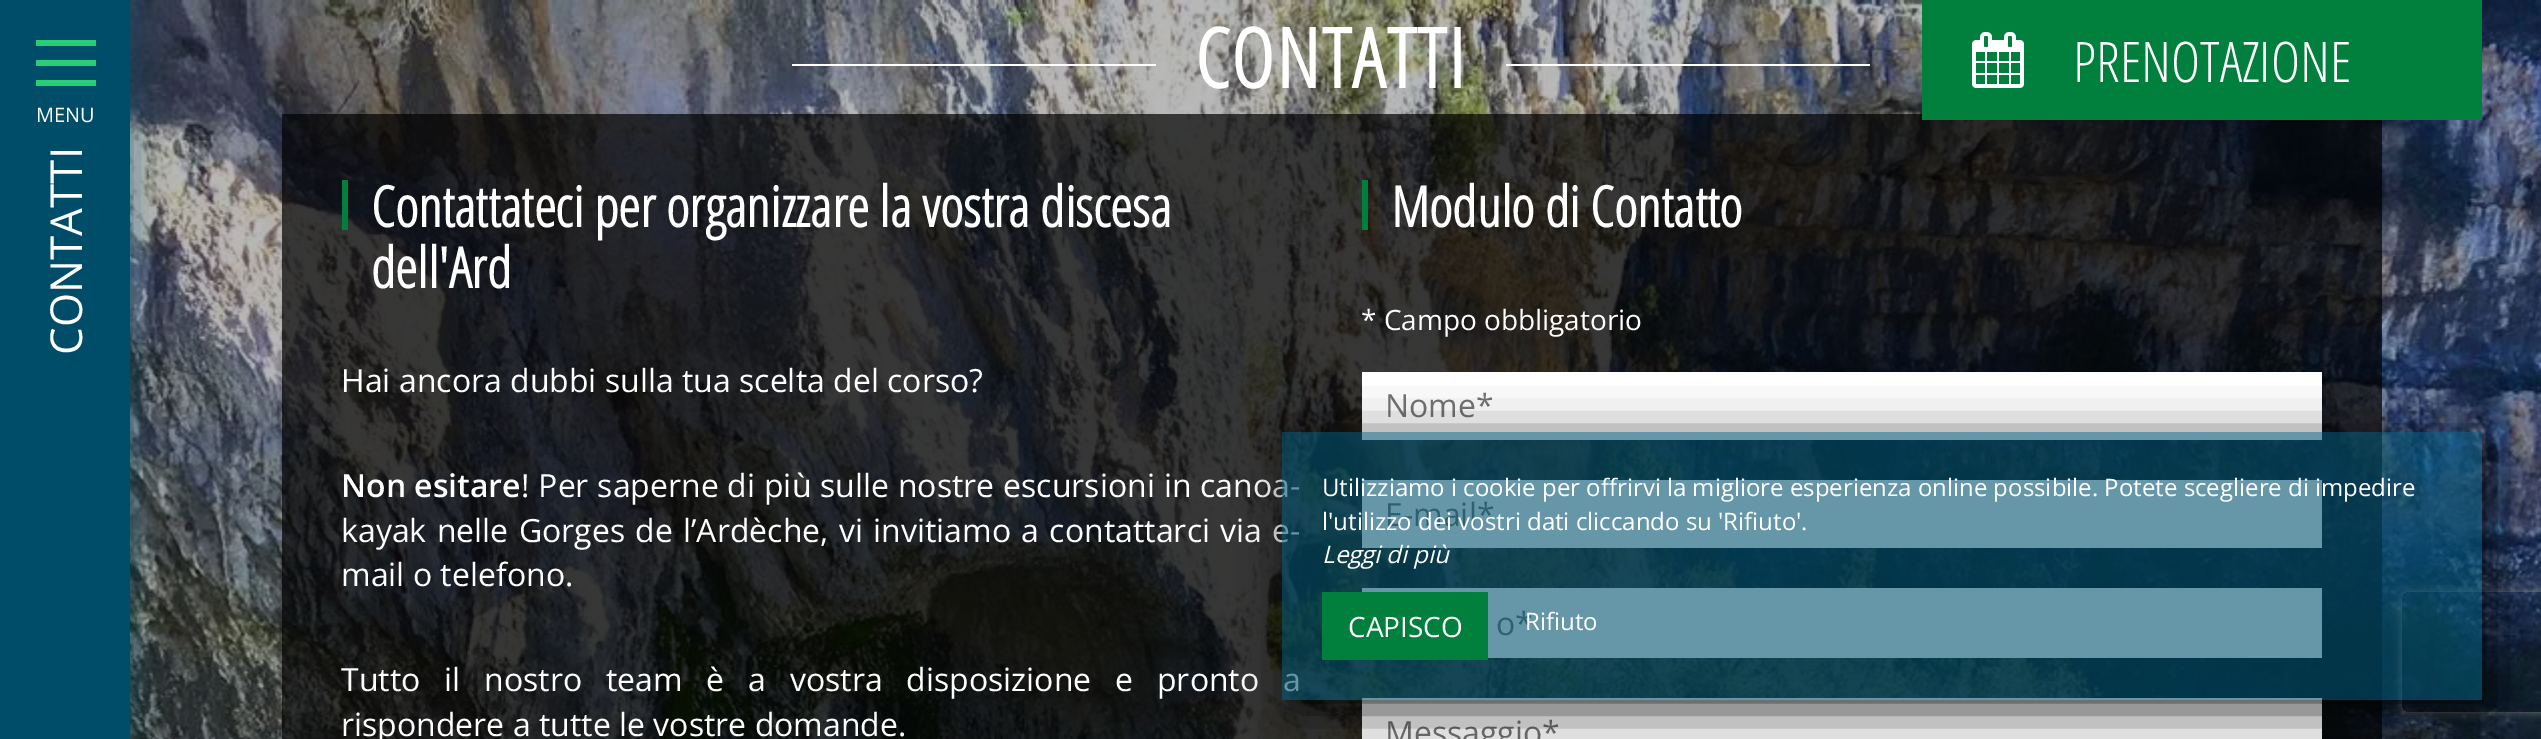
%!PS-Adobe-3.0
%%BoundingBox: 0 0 2541 739
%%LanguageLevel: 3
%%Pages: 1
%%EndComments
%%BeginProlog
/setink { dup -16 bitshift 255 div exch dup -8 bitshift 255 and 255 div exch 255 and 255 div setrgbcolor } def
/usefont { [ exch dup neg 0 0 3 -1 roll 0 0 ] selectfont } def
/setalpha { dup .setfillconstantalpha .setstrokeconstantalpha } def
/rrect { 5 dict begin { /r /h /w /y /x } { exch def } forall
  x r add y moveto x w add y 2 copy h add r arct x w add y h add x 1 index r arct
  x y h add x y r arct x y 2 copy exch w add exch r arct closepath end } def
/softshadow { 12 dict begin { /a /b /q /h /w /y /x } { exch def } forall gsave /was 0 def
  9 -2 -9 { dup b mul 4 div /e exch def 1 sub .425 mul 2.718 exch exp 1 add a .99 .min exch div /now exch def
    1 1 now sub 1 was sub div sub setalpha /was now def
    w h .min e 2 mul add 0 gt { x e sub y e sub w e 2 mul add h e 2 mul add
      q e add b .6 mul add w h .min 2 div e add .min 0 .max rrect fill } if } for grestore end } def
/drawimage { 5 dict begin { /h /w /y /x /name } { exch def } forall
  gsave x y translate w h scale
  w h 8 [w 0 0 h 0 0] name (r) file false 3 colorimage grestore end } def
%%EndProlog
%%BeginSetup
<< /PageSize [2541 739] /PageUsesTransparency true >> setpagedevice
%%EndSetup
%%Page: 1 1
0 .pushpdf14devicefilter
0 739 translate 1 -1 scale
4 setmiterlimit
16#FFFFFF setink
0 0 2541 739 rectfill
(img1.raw) 130 0 2411 739 drawimage
16#005270 setink
0 0 130 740 0 15 0.6 softshadow
[
    [0 0 130 739 16#004D69]
    [36 40 60 6 16#29CC77]
    [36 60 60 6 16#29CC77]
    [36 80 60 6 16#29CC77]
] { aload pop setink rectfill } forall
/OpenSans-Regular 20 usefont
16#FFFFFF setink
36 122 moveto (MENU) show
/OpenSans-Regular 44 usefont
gsave 82 355 translate -90 rotate 0 0 moveto (CONTATTI) show grestore
792 64 364 2 rectfill
/OpenSansCondensed-Bold 82 usefont
1195 88 moveto 2 0 (CONTATTI) ashow
[
    [1506 64 364 2 16#FFFFFF]
] { aload pop setink rectfill } forall
0.7 setalpha
[
    [282 114 2100 625 16#000000]
] { aload pop setink rectfill } forall
1 setalpha
[
    [342 180 6 50 16#00803C]
] { aload pop setink rectfill } forall
/OpenSansCondensed-Bold 56 usefont
16#FFFFFF setink
371 227 moveto (Contattateci per organizzare la vostra discesa) show
371 288 moveto (dell'Ard) show
/OpenSans-Regular 32 usefont
341 392 moveto (Hai ancora dubbi sulla tua scelta del corso?) show
/OpenSans-SemiBold 32 usefont
341 497 moveto (Non esitare) show
/OpenSans-Regular 32 usefont
521 497 moveto 0.5 0 32 (! Per saperne di più sulle nostre escursioni in canoa-) widthshow
341 542 moveto 2 0 32 (kayak nelle Gorges de l’Ardèche, vi invitiamo a contattarci via e-) widthshow
341 586 moveto (mail o telefono.) show
341 691 moveto 15.5 0 32 (Tutto il nostro team è a vostra disposizione e pronto a) widthshow
341 736 moveto (rispondere a tutte le vostre domande.) show
16#00803C setink
1362 180 6 50 rectfill
/OpenSansCondensed-Bold 56 usefont
16#FFFFFF setink
1391 227 moveto (Modulo di Contatto) show
/OpenSans-Regular 28 usefont
1361 330 moveto (* Campo obbligatorio) show
1362 372 960 68 rectfill
/OpenSans-Regular 32 usefont
16#757575 setink
1385 417 moveto (Nome*) show
16#FFFFFF setink
1362 480 960 68 rectfill
16#757575 setink
1385 526 moveto (E-mail*) show
16#FFFFFF setink
1362 588 960 70 rectfill
16#757575 setink
1496 635 moveto (o*) show
gsave
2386 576 moveto 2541 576 lineto 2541 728 lineto 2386 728 lineto closepath 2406 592 moveto 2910 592 lineto 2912 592 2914 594 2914 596 curveto 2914 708 lineto 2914 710 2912 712 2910 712 curveto 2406 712 lineto 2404 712 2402 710 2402 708 curveto 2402 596 lineto 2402 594 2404 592 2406 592 curveto closepath eoclip newpath
16#808080 setink
2402 592 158 120 4 5 1 softshadow
grestore
16#FFFFFF setink
1362 698 960 41 rectfill
16#757575 setink
1385 744 moveto (Messaggio*) show
16#00803C setink
1922 0 560 120 rectfill
(img2.raw) 1972 32 52 56 drawimage
/OpenSansCondensed-Light 56 usefont
16#FFFFFF setink
2073 82 moveto (PRENOTAZIONE) show
gsave
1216 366 moveto 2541 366 lineto 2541 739 lineto 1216 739 lineto closepath 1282 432 moveto 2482 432 lineto 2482 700 lineto 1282 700 lineto closepath eoclip newpath
16#000000 setink
1292 442 1200 268 0 25 0.8 softshadow
grestore
0.6 setalpha
16#005270 setink
1282 432 1200 268 rectfill
/OpenSans-Regular 24 usefont
1 setalpha
16#FFFFFF setink
1322 496 moveto (Utilizziamo i cookie per offrirvi la migliore esperienza online possibile. Potete scegliere di impedire) show
1322 530 moveto (l'utilizzo dei vostri dati cliccando su 'Rifiuto'.) show
/OpenSans-Italic 24 usefont
1322 563 moveto (Leggi di più) show
16#00803C setink
1322 592 166 68 rectfill
/OpenSans-Regular 28 usefont
16#FFFFFF setink
1348 637 moveto (CAPISCO) show
/OpenSans-Regular 24 usefont
1525 630 moveto (Rifiuto) show
.poppdf14devicefilter showpage
%%EOF
